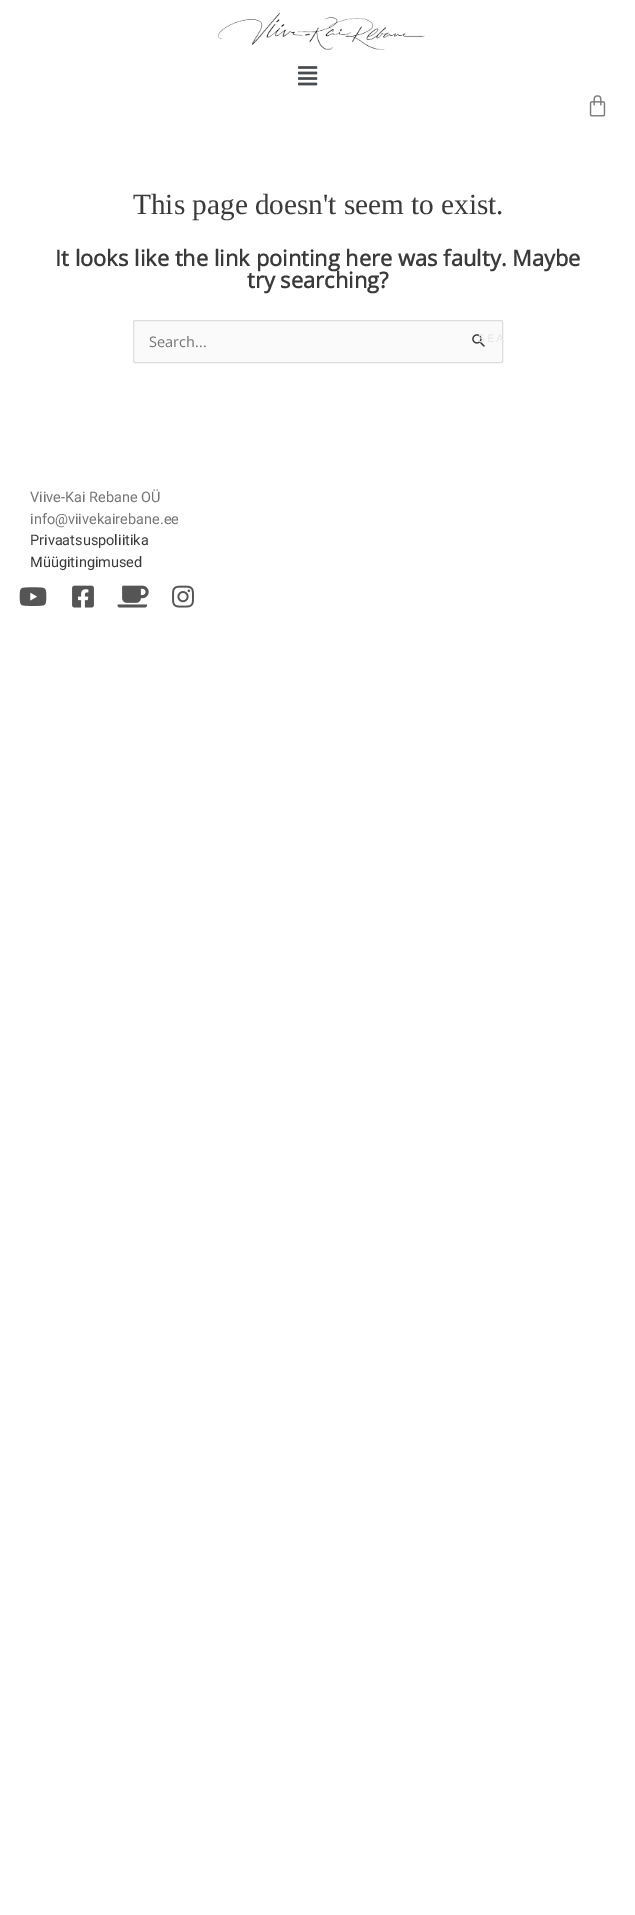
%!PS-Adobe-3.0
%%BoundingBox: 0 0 635 1915
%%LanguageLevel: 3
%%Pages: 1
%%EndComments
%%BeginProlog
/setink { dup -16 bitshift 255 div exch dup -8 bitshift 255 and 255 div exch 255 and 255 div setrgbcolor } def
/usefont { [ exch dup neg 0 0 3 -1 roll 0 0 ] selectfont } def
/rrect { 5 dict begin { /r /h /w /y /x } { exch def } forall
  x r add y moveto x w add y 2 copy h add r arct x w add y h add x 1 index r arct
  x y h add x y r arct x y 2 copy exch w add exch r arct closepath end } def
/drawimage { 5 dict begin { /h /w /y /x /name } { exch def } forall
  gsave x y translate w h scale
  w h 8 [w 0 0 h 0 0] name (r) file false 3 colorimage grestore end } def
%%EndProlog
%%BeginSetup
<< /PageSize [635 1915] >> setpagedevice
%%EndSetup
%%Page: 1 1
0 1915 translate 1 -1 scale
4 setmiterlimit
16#FFFFFF setink
0 0 635 1915 rectfill
(img1.raw) 218 12 207 38 drawimage
(img2.raw) 298 66 20 20 drawimage
(img3.raw) 589 95 17 22 drawimage
/LiberationSerif-Regular 29.25 usefont
16#3A3A3A setink
133 214 moveto (This page doesn't seem to exist.) show
/OpenSans-Bold 21.9 usefont
55 266 moveto (It looks like the link pointing here was faulty. Maybe) show
247 288 moveto (try searching?) show
16#FAFAFA setink
133.5 320.5 369 42 1.5 rrect gsave fill grestore
16#DDDDDD setink
stroke
(img4.raw) 472 334 13 13 drawimage
/OpenSans-Regular 14.5 usefont
16#757575 setink
149 347 moveto (Search...) show
/Montserrat-Thin 11 usefont
16#E7E7E7 setink
478 342 moveto 2 0 (SEA) ashow
/Roboto-Regular 14.5 usefont
16#757575 setink
30 502 moveto (Viive-Kai Rebane OÜ) show
30 524 moveto (info@viivekairebane.ee) show
16#3A3A3A setink
30 545 moveto (Privaatsuspoliitika) show
30 567 moveto (Müügitingimused) show
(img5.raw) 19 587 28 19 drawimage
(img6.raw) 72 585 22 23 drawimage
(img7.raw) 117 585 32 23 drawimage
(img8.raw) 172 585 22 23 drawimage
showpage
%%EOF
